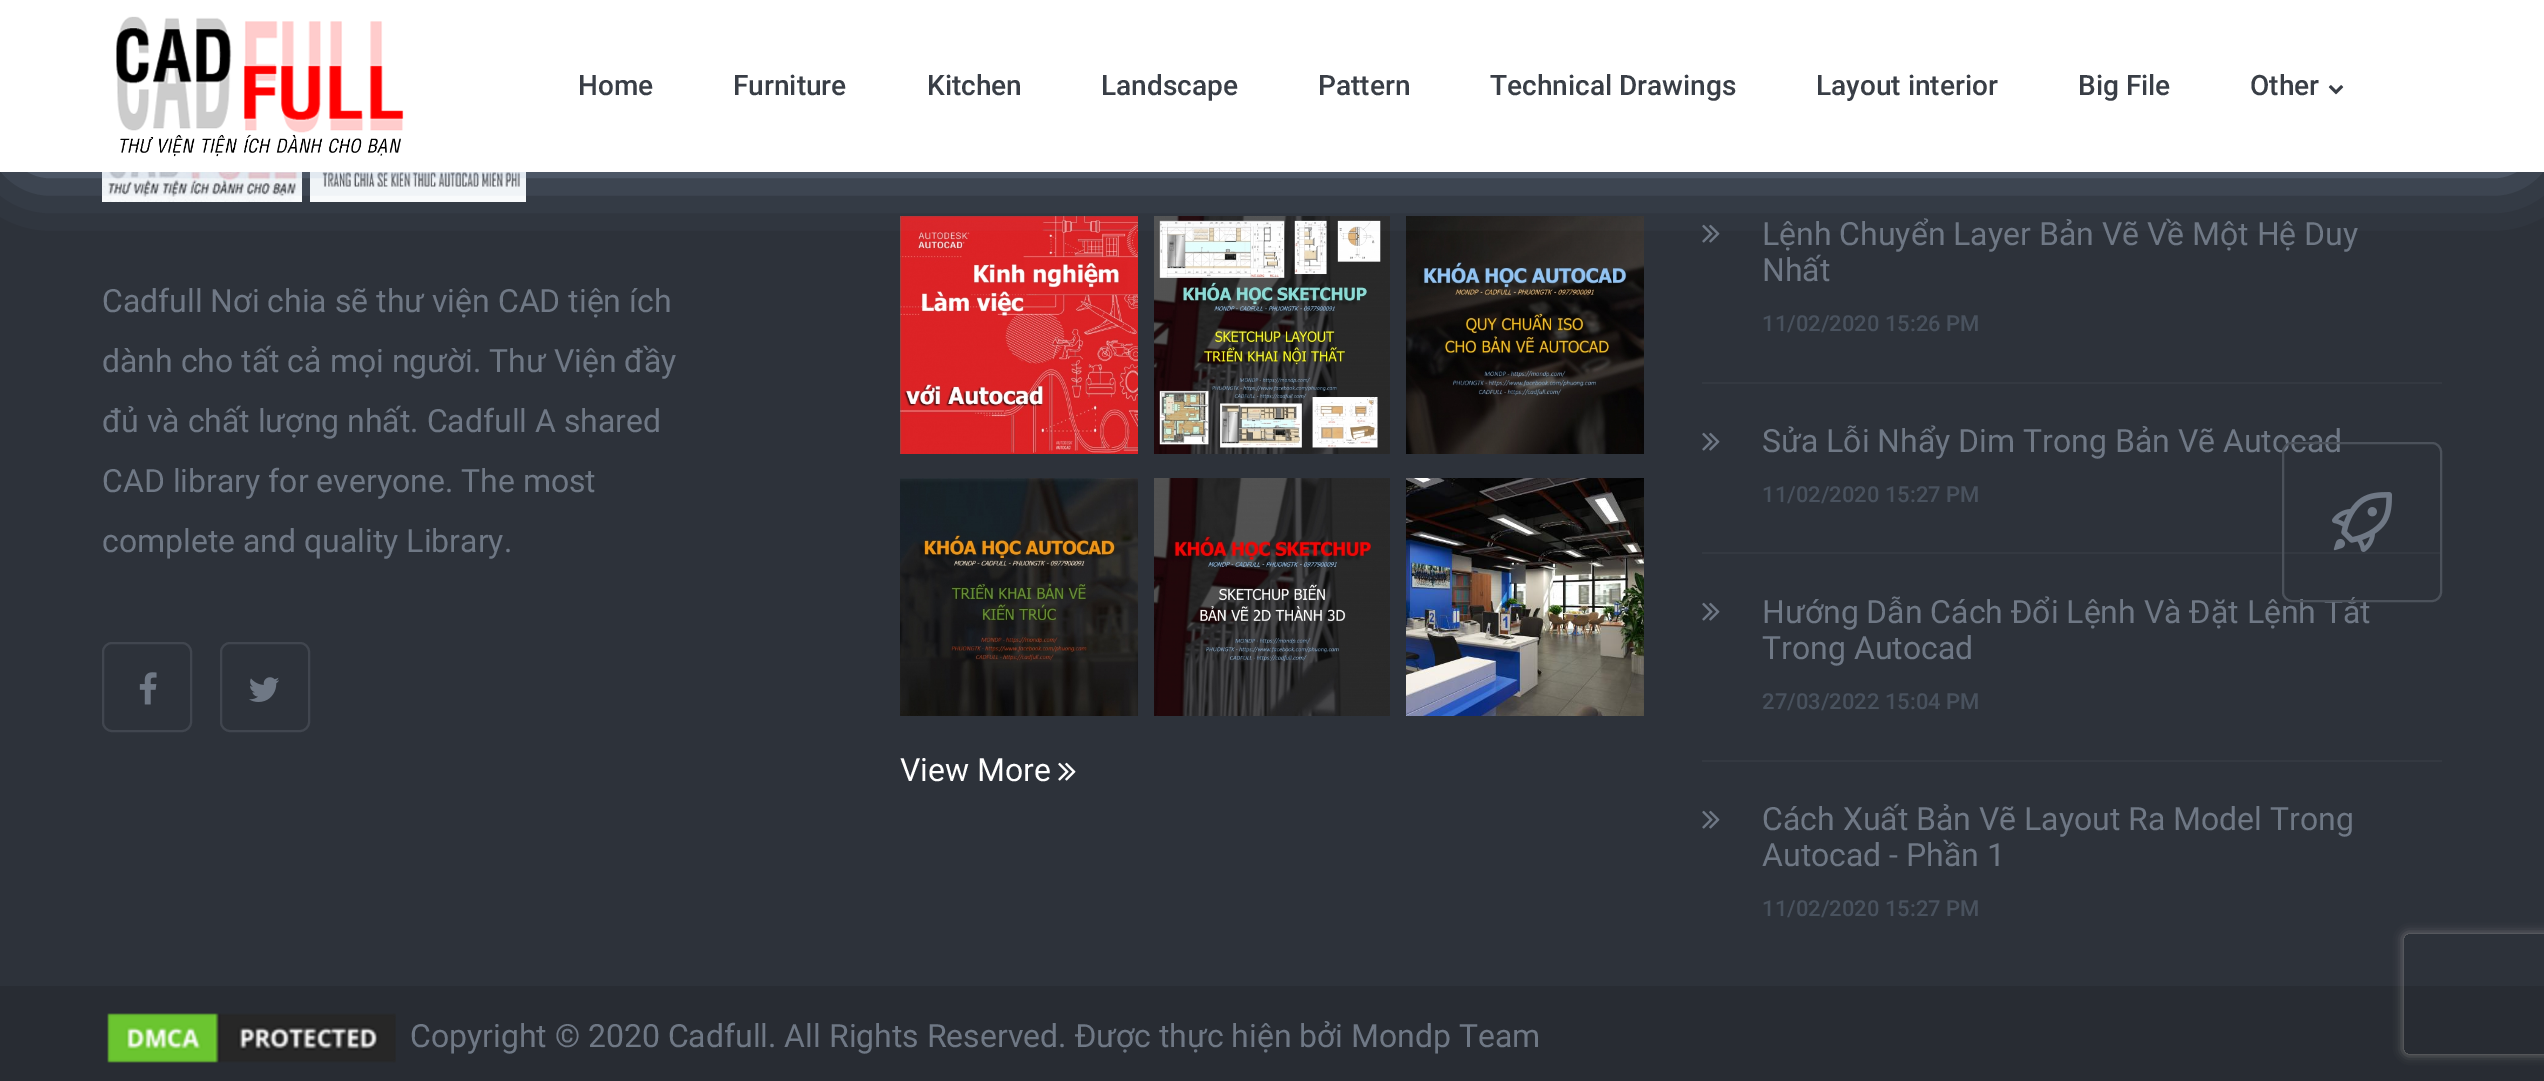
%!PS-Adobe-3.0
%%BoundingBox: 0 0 2544 1081
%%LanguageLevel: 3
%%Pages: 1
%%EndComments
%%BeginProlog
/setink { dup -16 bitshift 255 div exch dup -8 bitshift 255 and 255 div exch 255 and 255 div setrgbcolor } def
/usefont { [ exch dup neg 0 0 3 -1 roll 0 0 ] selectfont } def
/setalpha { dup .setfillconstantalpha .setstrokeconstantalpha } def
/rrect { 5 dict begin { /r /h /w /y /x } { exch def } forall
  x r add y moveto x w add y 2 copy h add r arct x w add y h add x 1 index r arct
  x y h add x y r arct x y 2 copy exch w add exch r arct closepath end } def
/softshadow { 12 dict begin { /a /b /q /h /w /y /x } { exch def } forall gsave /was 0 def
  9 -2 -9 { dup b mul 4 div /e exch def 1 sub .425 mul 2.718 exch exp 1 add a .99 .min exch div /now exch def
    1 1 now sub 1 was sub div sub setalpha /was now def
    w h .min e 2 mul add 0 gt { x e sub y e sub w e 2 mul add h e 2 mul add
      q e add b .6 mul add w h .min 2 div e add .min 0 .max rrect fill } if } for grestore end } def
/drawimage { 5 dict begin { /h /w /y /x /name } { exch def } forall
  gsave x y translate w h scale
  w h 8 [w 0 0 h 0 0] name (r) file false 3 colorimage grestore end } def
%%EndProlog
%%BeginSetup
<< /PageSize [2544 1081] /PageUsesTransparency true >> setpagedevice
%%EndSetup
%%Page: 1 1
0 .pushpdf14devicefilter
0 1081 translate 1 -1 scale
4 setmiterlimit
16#2D323A setink
0 0 2544 1081 rectfill
(img3.raw) 102 172 200 30 drawimage
16#FFFFFF setink
310 172 216 30 rectfill
(img4.raw) 322 172 198 15 drawimage
(img7.raw) 1702 224 18 19 drawimage
(img9.raw) 900 216 238 238 drawimage
(img10.raw) 1154 216 236 238 drawimage
(img11.raw) 1406 216 238 238 drawimage
16#9CB1CF setink
30 40 2484 112 0 35 1 softshadow
16#FFFFFF setink
0 0 2544 172 rectfill
(img1.raw) 116 16 288 141 drawimage
/Roboto-Medium 28 usefont
16#393E46 setink
[
    [(Home) 578 95]
    [(Furniture) 733 95]
    [(Kitchen) 927 95]
    [(Landscape) 1101 95]
    [(Pattern) 1318 95]
    [(Technical Drawings) 1490 95]
    [(Layout interior) 1816 95]
    [(Big File) 2078 95]
    [(Other) 2250 95]
] { aload pop moveto show } forall
(img2.raw) 2328 85 16 10 drawimage
/Roboto-Regular 32 usefont
16#6F7885 setink
[
    [(Cadfull Nơi chia sẽ thư viện CAD tiện ích) 102 312]
    [(dành cho tất cả mọi người. Thư Viện đầy) 102 372]
    [(đủ và chất lượng nhất. Cadfull A shared) 102 432]
    [(CAD library for everyone. The most) 102 492]
    [(complete and quality Library.) 102 552]
] { aload pop moveto show } forall
16#41464F setink
2 setlinewidth
103 643 88 88 9 rrect stroke
(img5.raw) 139 672 18 33 drawimage
221 643 88 88 9 rrect stroke
(img6.raw) 249 677 30 25 drawimage
16#343941 setink
1702 382 740 2 rectfill
16#6F7885 setink
1762 245 moveto (Lệnh Chuyển Layer Bản Vẽ Về Một Hệ Duy) show
1762 281 moveto (Nhất) show
/Roboto-Medium 22 usefont
16#49525E setink
1762 331 moveto (11/02/2020 15:26 PM) show
16#343941 setink
1702 552 740 2 rectfill
(img7.raw) 1702 432 18 19 drawimage
/Roboto-Regular 32 usefont
16#6F7885 setink
1762 452 moveto (Sửa Lỗi Nhẩy Dim Trong Bản Vẽ Autocad) show
/Roboto-Medium 22 usefont
16#49525E setink
1762 502 moveto (11/02/2020 15:27 PM) show
16#343941 setink
1702 760 740 2 rectfill
(img7.raw) 1702 602 18 19 drawimage
/Roboto-Regular 32 usefont
16#6F7885 setink
1762 623 moveto (Hướng Dẫn Cách Đổi Lệnh Và Đặt Lệnh Tắt) show
1762 659 moveto (Trong Autocad) show
/Roboto-Medium 22 usefont
16#49525E setink
1762 709 moveto (27/03/2022 15:04 PM) show
(img7.raw) 1702 810 18 19 drawimage
/Roboto-Regular 32 usefont
16#6F7885 setink
1762 830 moveto (Cách Xuất Bản Vẽ Layout Ra Model Trong) show
1762 866 moveto (Autocad - Phần 1) show
/Roboto-Medium 22 usefont
16#49525E setink
1762 916 moveto (11/02/2020 15:27 PM) show
16#4C525B setink
2283 443 158 158 9 rrect stroke
(img8.raw) 2332 492 60 60 drawimage
(img12.raw) 900 478 238 238 drawimage
(img13.raw) 1154 478 236 238 drawimage
(img14.raw) 1406 478 238 238 drawimage
/Roboto-Regular 32 usefont
16#FFFFFF setink
900 781 moveto (View More) show
(img15.raw) 1058 762 18 19 drawimage
16#282C33 setink
0 986 2544 95 rectfill
(img16.raw) 107 1013 289 50 drawimage
16#6F7885 setink
410 1047 moveto (Copyright © 2020 Cadfull. All Rights Reserved. Được thực hiện bởi Mondp Team) show
gsave
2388 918 moveto 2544 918 lineto 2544 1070 lineto 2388 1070 lineto closepath 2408 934 moveto 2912 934 lineto 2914 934 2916 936 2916 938 curveto 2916 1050 lineto 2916 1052 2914 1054 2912 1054 curveto 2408 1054 lineto 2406 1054 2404 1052 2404 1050 curveto 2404 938 lineto 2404 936 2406 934 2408 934 curveto closepath eoclip newpath
16#808080 setink
2404 934 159 120 4 5 1 softshadow
grestore
.poppdf14devicefilter showpage
%%EOF
